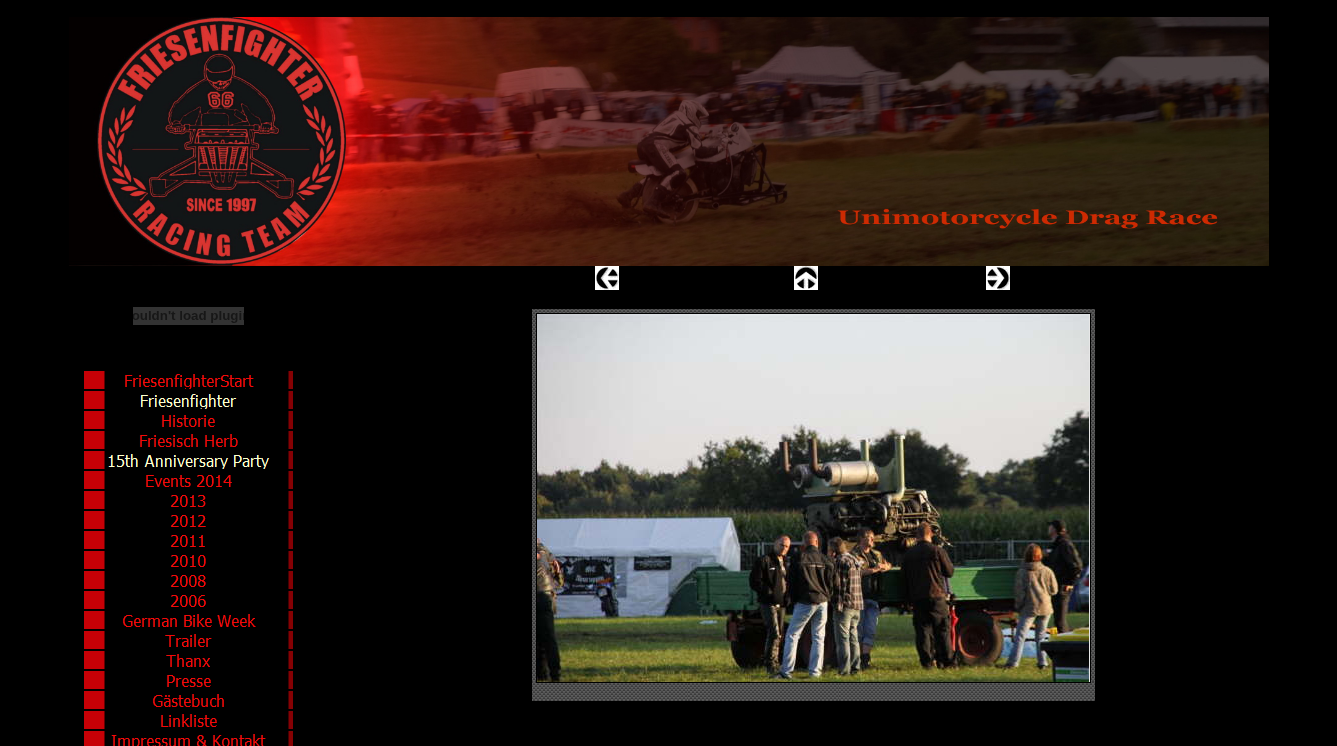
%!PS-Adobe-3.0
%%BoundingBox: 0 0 1337 746
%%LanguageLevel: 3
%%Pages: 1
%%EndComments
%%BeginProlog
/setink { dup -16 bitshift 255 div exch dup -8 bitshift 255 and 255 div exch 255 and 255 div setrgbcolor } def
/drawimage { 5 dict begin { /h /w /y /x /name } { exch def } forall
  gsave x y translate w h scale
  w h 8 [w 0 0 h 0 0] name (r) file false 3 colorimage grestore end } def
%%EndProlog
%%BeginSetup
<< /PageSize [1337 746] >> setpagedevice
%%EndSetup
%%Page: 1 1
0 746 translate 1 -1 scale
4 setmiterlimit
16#000000 setink
0 0 1337 746 rectfill
(img1.raw) 69 17 1200 249 drawimage
(img2.raw) 133 307 111 18 drawimage
(img3.raw) 84 371 209 18 drawimage
(img4.raw) 84 391 209 18 drawimage
(img5.raw) 84 411 209 18 drawimage
(img6.raw) 84 431 209 18 drawimage
(img7.raw) 84 451 209 18 drawimage
(img8.raw) 84 471 209 18 drawimage
(img9.raw) 84 491 209 18 drawimage
(img10.raw) 84 511 209 18 drawimage
(img11.raw) 84 531 209 18 drawimage
(img12.raw) 84 551 209 18 drawimage
(img13.raw) 84 571 209 18 drawimage
(img14.raw) 84 591 209 18 drawimage
(img15.raw) 84 611 209 18 drawimage
(img16.raw) 84 631 209 18 drawimage
(img17.raw) 84 651 209 18 drawimage
(img18.raw) 84 671 209 18 drawimage
(img19.raw) 84 691 209 18 drawimage
(img20.raw) 84 711 209 18 drawimage
(img21.raw) 84 731 209 15 drawimage
(img22.raw) 595 266 24 24 drawimage
(img23.raw) 794 266 24 24 drawimage
(img24.raw) 986 266 24 24 drawimage
(img25.raw) 532 309 5 5 drawimage
(img26.raw) 537 309 552 4 drawimage
(img27.raw) 1089 309 6 5 drawimage
(img28.raw) 532 314 4 368 drawimage
(img29.raw) 537 314 552 368 drawimage
(img30.raw) 1089 314 6 368 drawimage
(img31.raw) 532 682 5 19 drawimage
(img32.raw) 537 683 552 18 drawimage
(img33.raw) 1089 682 6 19 drawimage
showpage
%%EOF
